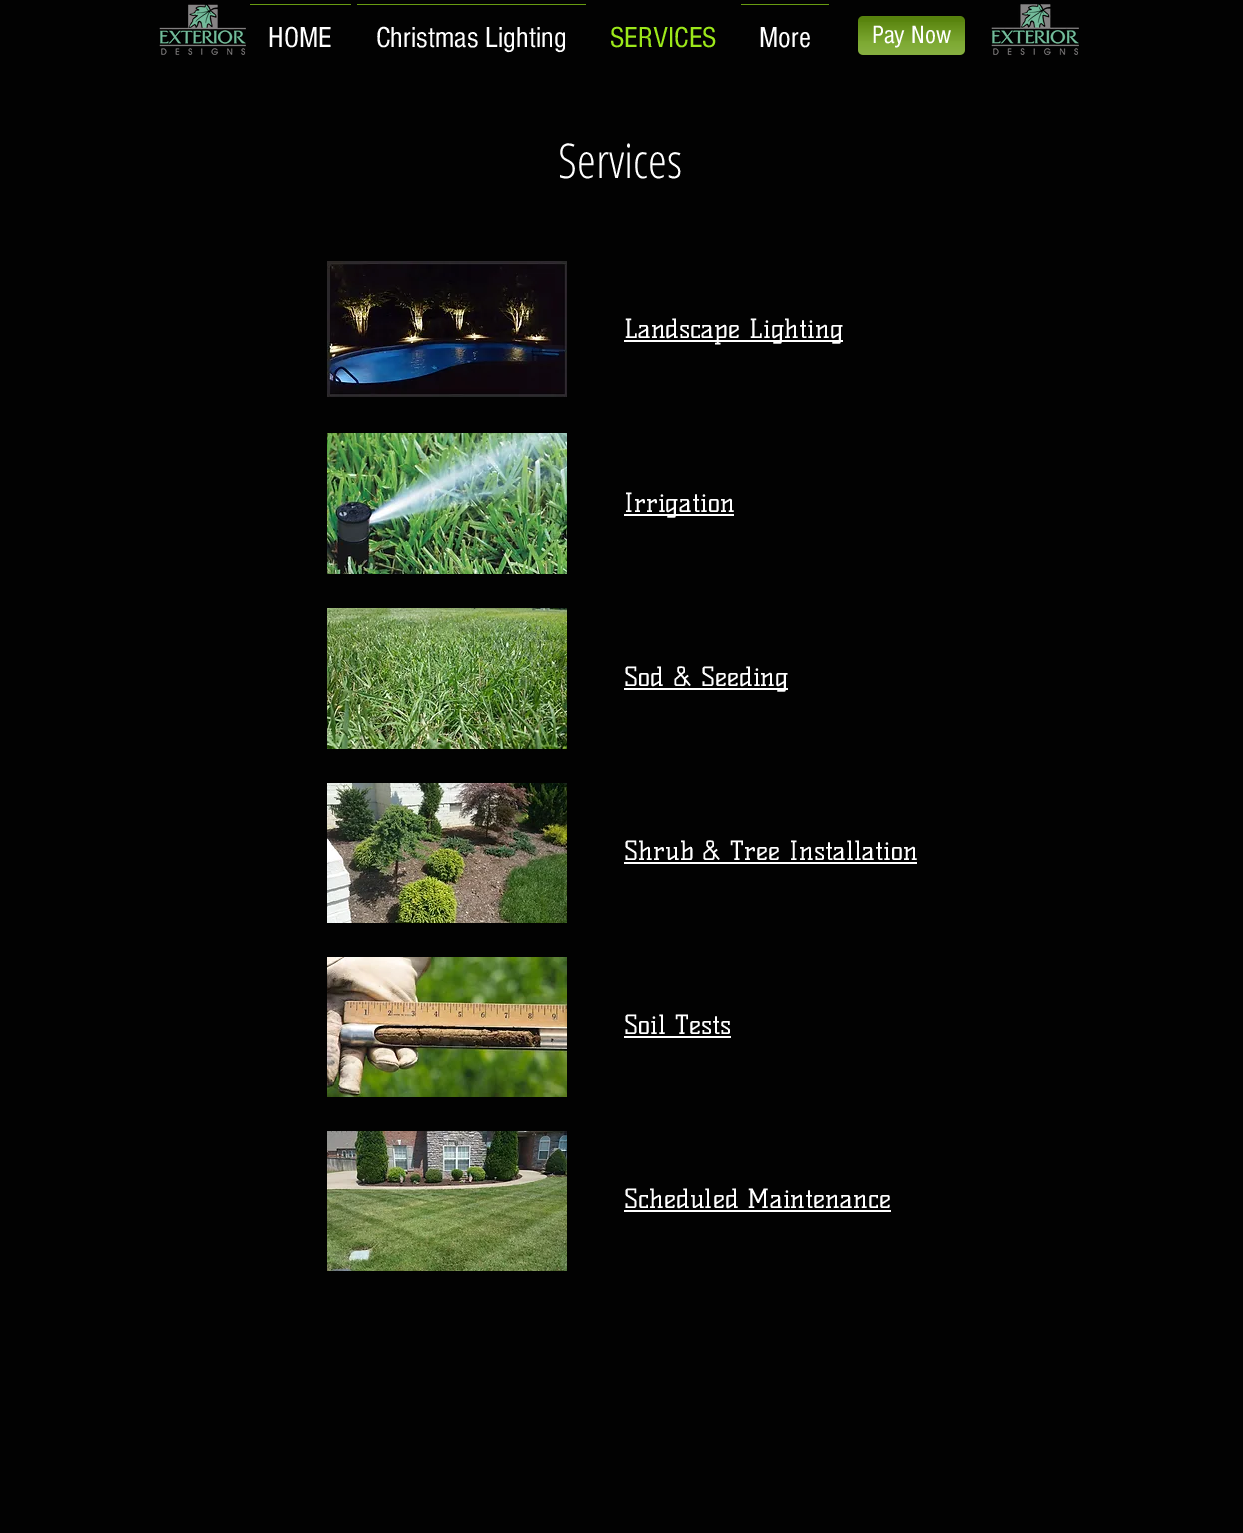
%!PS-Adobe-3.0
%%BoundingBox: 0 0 1243 1533
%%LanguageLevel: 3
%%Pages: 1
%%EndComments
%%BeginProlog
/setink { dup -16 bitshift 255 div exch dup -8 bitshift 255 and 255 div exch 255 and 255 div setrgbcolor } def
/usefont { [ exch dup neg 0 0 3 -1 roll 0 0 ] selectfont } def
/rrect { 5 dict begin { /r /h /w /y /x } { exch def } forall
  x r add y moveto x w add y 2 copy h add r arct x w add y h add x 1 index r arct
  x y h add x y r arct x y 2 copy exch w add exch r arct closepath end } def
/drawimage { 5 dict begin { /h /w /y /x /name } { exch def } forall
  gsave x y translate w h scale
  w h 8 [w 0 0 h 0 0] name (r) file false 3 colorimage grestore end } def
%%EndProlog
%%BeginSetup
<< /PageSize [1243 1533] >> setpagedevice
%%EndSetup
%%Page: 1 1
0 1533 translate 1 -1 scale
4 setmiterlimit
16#020202 setink
0 0 1243 1533 rectfill
(img1.raw) 159 4 87 51 drawimage
16#689B11 setink
250 4 101 1 rectfill
/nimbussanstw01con-Regular 30 usefont
16#FFFFFF setink
268 47 moveto (HOME) show
16#689B11 setink
357 4 229 1 rectfill
16#FFFFFF setink
376 47 moveto (Christmas Lighting) show
16#9CE81A setink
610 47 moveto (SERVICES) show
16#689B11 setink
741 4 88 1 rectfill
16#FFFFFF setink
759 47 moveto (More) show
16#689B11 setink
858 16 107 39 5 rrect fill
(img2.raw) 858 16 107 25 drawimage
(img3.raw) 858 22 107 33 drawimage
/nimbussanstw01con-Regular 26 usefont
16#FFFFFF setink
872 43 moveto (Pay Now) show
(img4.raw) 991 4 88 51 drawimage
/OpenSansCondensed-Light 48 usefont
558 178 moveto (Services) show
(img5.raw) 327 261 240 136 drawimage
624 340 219 2 rectfill
/KellySlab-Regular 26 usefont
624 338 moveto (Landscape Lighting) show
(img6.raw) 327 433 240 141 drawimage
624 514 110 2 rectfill
624 512 moveto (Irrigation) show
(img7.raw) 327 608 240 141 drawimage
624 688 164 2 rectfill
624 686 moveto (Sod & Seeding) show
(img8.raw) 327 783 240 140 drawimage
624 860 moveto (Shrub & Tree Installation) show
624 862 293 2 rectfill
(img9.raw) 327 957 240 140 drawimage
624 1034 moveto (Soil Tests) show
624 1036 107 2 rectfill
(img10.raw) 327 1131 240 140 drawimage
624 1208 moveto (Scheduled Maintenance) show
624 1210 267 2 rectfill
showpage
%%EOF
